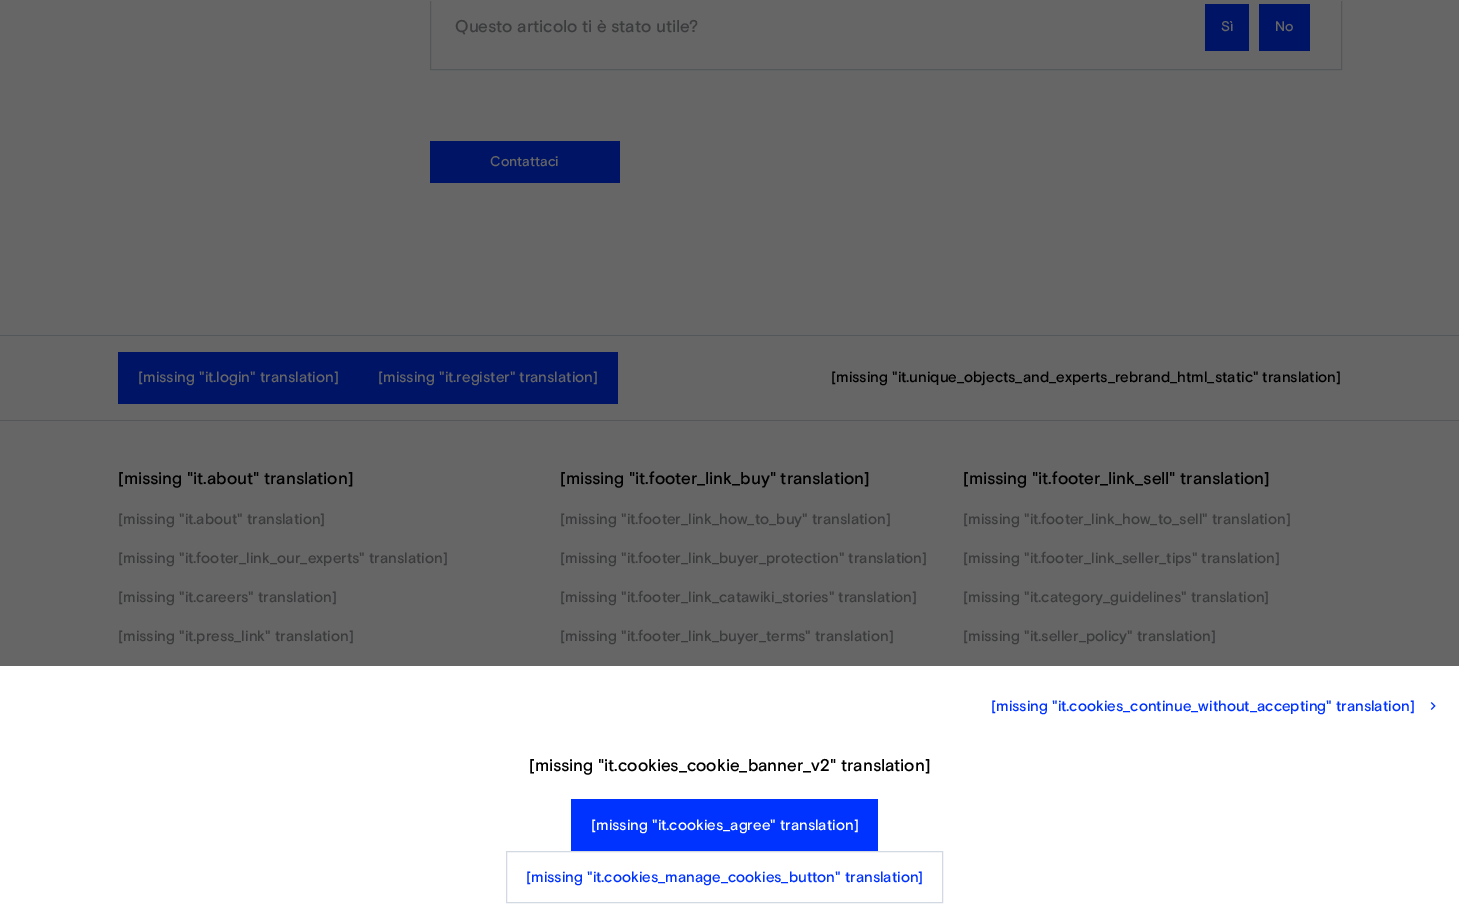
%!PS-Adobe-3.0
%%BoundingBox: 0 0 1459 919
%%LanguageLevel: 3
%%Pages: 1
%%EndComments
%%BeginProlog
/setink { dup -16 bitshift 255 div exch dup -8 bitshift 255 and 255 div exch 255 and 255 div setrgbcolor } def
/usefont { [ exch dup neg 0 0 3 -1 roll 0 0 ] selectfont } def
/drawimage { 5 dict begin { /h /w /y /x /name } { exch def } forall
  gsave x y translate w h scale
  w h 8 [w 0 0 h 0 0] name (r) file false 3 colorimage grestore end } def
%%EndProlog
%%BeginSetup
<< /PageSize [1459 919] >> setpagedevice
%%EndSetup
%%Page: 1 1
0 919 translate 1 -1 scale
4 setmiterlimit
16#666666 setink
0 0 1459 919 rectfill
16#54575A setink
430.5 -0.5 911 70 rectstroke
16#666666 setink
430 0 912 1 rectfill
/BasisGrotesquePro-Medium 17 usefont
16#3A3B3C setink
455 32 moveto (Questo articolo ti è stato utile?) show
16#001466 setink
1205 4 44 47 rectfill
/BasisGrotesquePro-Medium 14 usefont
16#666666 setink
1221 31 moveto (Sì) show
16#001466 setink
1259 4 51 47 rectfill
16#666666 setink
1275 31 moveto (No) show
16#001466 setink
430 141 190 42 rectfill
16#666666 setink
490 166 moveto (Contattaci) show
16#54575A setink
0 335 1459 1 rectfill
16#001466 setink
118 352 500 52 rectfill
/BasisGrotesquePro-Medium 15 usefont
16#666666 setink
138 382 moveto ([missing "it.login" translation]) show
378 382 moveto ([missing "it.register" translation]) show
16#000000 setink
831 382 moveto ([missing "it.unique_objects_and_experts_rebrand_html_static" translation]) show
16#54575A setink
0 420 1459 1 rectfill
/BasisGrotesquePro-Medium 17 usefont
16#000000 setink
118 484 moveto ([missing "it.about" translation]) show
/BasisGrotesquePro-Medium 15 usefont
16#3A3B3C setink
[
    [([missing "it.about" translation]) 118 524]
    [([missing "it.footer_link_our_experts" translation]) 118 563]
    [([missing "it.careers" translation]) 118 602]
    [([missing "it.press_link" translation]) 118 641]
] { aload pop moveto show } forall
/BasisGrotesquePro-Medium 17 usefont
16#000000 setink
560 484 moveto ([missing "it.footer_link_buy" translation]) show
/BasisGrotesquePro-Medium 15 usefont
16#3A3B3C setink
[
    [([missing "it.footer_link_how_to_buy" translation]) 560 524]
    [([missing "it.footer_link_buyer_protection" translation]) 560 563]
    [([missing "it.footer_link_catawiki_stories" translation]) 560 602]
    [([missing "it.footer_link_buyer_terms" translation]) 560 641]
] { aload pop moveto show } forall
/BasisGrotesquePro-Medium 17 usefont
16#000000 setink
963 484 moveto ([missing "it.footer_link_sell" translation]) show
/BasisGrotesquePro-Medium 15 usefont
16#3A3B3C setink
[
    [([missing "it.footer_link_how_to_sell" translation]) 963 524]
    [([missing "it.footer_link_seller_tips" translation]) 963 563]
    [([missing "it.category_guidelines" translation]) 963 602]
    [([missing "it.seller_policy" translation]) 963 641]
] { aload pop moveto show } forall
16#FFFFFF setink
0 666 1459 253 rectfill
16#0033FF setink
991 711 moveto ([missing "it.cookies_continue_without_accepting" translation]) show
(img1.raw) 1430 702 6 8 drawimage
/BasisGrotesquePro-Medium 17 usefont
16#000000 setink
529 771 moveto ([missing "it.cookies_cookie_banner_v2" translation]) show
16#0033FF setink
571 799 307 52 rectfill
/BasisGrotesquePro-Medium 15 usefont
16#FFFFFF setink
591 830 moveto ([missing "it.cookies_agree" translation]) show
16#D2D9E1 setink
506.5 851.5 436 51 rectstroke
16#0033FF setink
526 882 moveto ([missing "it.cookies_manage_cookies_button" translation]) show
showpage
%%EOF
